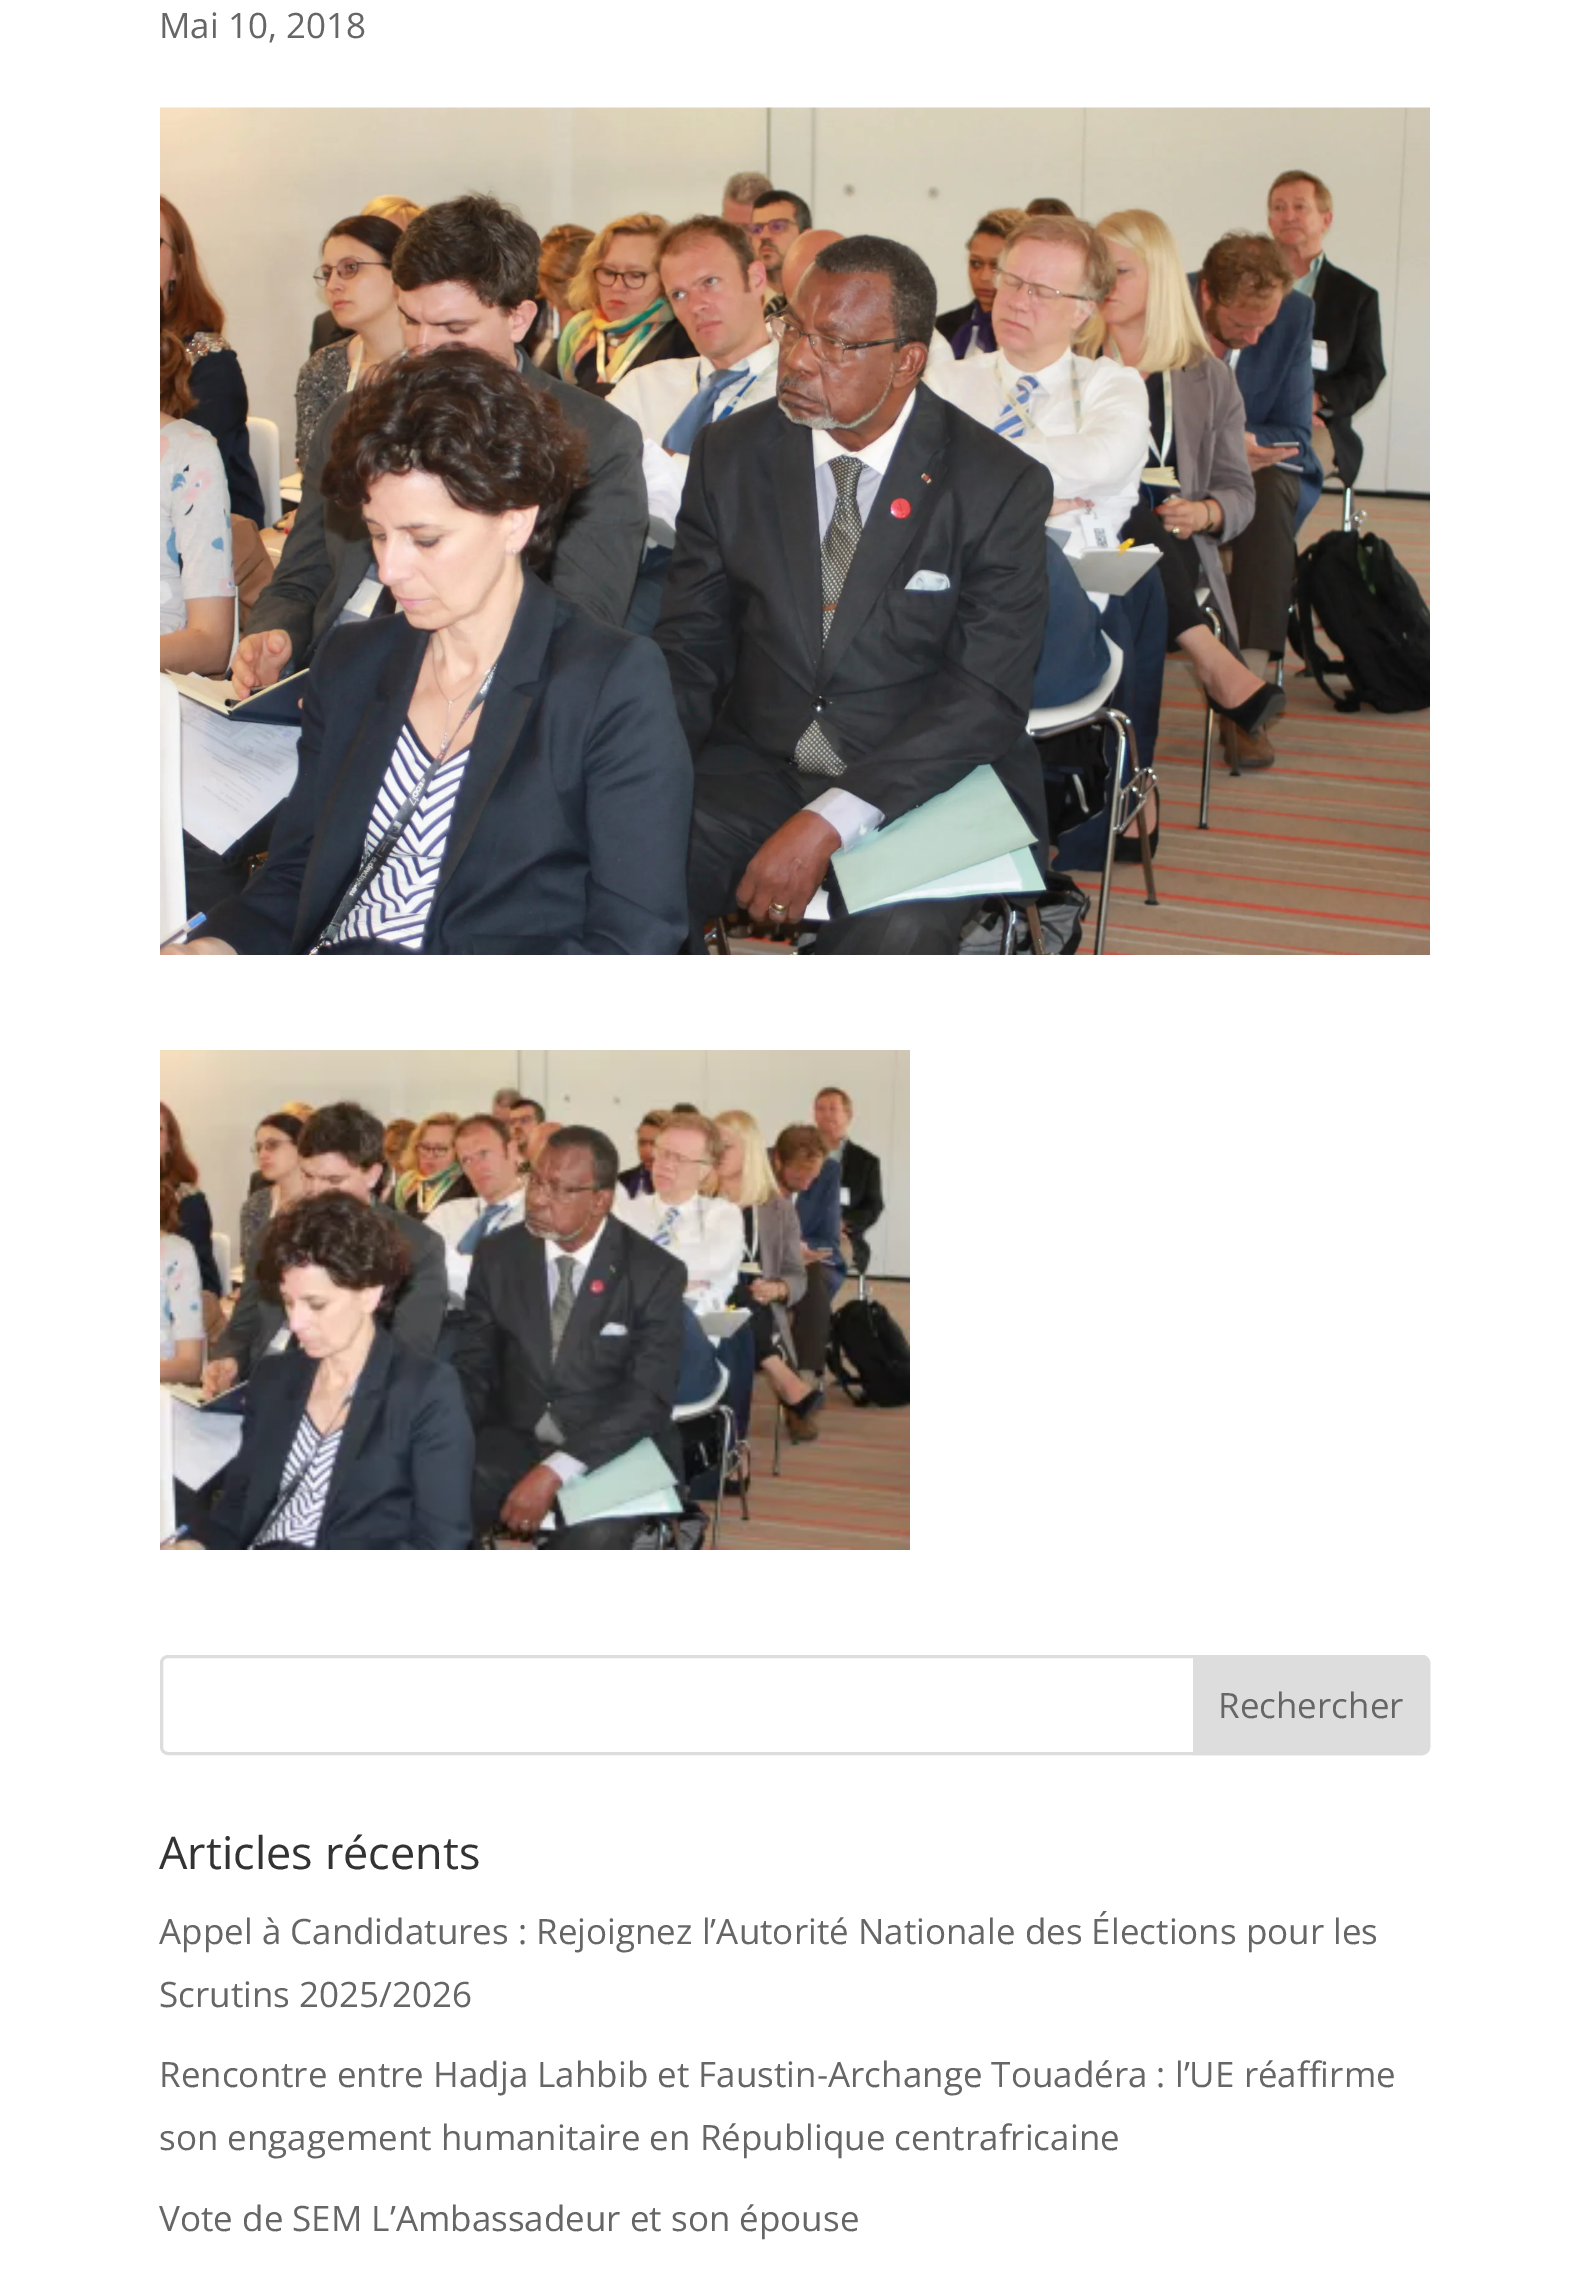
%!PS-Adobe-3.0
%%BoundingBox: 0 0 1588 2273
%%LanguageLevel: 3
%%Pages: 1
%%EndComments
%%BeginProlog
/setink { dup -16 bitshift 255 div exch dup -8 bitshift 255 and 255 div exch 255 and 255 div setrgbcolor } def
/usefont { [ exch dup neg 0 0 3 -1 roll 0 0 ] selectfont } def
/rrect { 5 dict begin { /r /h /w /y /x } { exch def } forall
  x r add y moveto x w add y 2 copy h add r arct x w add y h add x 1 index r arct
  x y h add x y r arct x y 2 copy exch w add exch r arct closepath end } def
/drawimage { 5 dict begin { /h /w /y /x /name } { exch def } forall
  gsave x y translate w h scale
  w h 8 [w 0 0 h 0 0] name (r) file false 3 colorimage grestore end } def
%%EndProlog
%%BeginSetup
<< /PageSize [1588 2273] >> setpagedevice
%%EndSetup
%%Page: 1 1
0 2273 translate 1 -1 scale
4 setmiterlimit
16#FFFFFF setink
0 0 1588 2273 rectfill
/OpenSans-Regular 35 usefont
16#666666 setink
159 38 moveto (Mai 10, 2018) show
(img1.raw) 160 107 1270 848 drawimage
(img2.raw) 160 1050 750 500 drawimage
16#DDDDDD setink
3 setlinewidth
161.5 1656.5 1267 97 6.5 rrect stroke
1194.5 1656.5 moveto 1422 1656.5 lineto 1425.5 1656.5 1428.5 1659.5 1428.5 1663 curveto 1428.5 1747 lineto 1428.5 1750.5 1425.5 1753.5 1422 1753.5 curveto 1194.5 1753.5 lineto closepath gsave fill grestore
stroke
16#666666 setink
1218 1718 moveto (Rechercher) show
/OpenSans-Regular 45 usefont
16#333333 setink
159 1869 moveto (Articles récents) show
/OpenSans-Regular 35 usefont
16#666666 setink
[
    [(Appel à Candidatures : Rejoignez l’Autorité Nationale des Élections pour les) 159 1944]
    [(Scrutins 2025/2026) 159 2007]
    [(Rencontre entre Hadja Lahbib et Faustin-Archange Touadéra : l’UE réaffirme) 159 2087]
    [(son engagement humanitaire en République centrafricaine) 159 2150]
    [(Vote de SEM L’Ambassadeur et son épouse) 159 2231]
] { aload pop moveto show } forall
showpage
%%EOF
